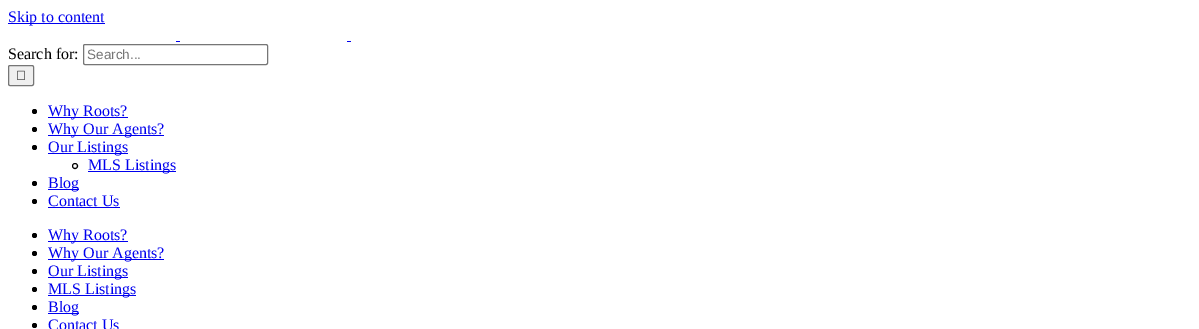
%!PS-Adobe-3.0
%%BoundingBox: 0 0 1199 329
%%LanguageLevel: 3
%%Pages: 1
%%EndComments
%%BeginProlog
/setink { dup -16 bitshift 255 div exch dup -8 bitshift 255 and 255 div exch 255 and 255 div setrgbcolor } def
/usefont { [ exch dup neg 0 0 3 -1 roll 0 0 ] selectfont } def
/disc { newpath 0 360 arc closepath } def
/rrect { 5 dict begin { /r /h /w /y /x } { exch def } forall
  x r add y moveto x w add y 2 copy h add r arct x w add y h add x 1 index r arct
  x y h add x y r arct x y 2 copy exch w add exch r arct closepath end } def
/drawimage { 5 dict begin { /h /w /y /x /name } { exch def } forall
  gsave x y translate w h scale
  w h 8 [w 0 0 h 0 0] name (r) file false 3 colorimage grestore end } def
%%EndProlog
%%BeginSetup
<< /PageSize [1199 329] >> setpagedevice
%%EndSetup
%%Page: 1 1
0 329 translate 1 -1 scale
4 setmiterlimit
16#FFFFFF setink
0 0 1199 329 rectfill
16#0000EE setink
8 23 97 1 rectfill
/LiberationSerif-Regular 16 usefont
8 22 moveto (Skip to content) show
176 41 4 1 rectfill
347 41 4 1 rectfill
16#000000 setink
8 59 moveto (Search for:) show
16#767676 setink
83.5 44.5 184 20 1.5 rrect stroke
/LiberationSans-Regular 13.5 usefont
16#757575 setink
87 59 moveto (Search...) show
16#EFEFEF setink
8.5 65.5 25 20 1.5 rrect gsave fill grestore
16#767676 setink
stroke
(img1.raw) 17 70 8 10 drawimage
16#000000 setink
34.5 111.5 2.5 disc fill
16#0000EE setink
48 117 80 1 rectfill
/LiberationSerif-Regular 16 usefont
48 116 moveto (Why Roots?) show
16#000000 setink
34.5 129.5 2.5 disc fill
16#0000EE setink
48 135 116 1 rectfill
48 134 moveto (Why Our Agents?) show
16#000000 setink
34.5 147.5 2.5 disc fill
16#0000EE setink
48 153 80 1 rectfill
48 152 moveto (Our Listings) show
16#000000 setink
75 166 2.5 disc stroke
16#0000EE setink
88 171 88 1 rectfill
88 170 moveto (MLS Listings) show
16#000000 setink
34.5 183.5 2.5 disc fill
16#0000EE setink
48 189 31 1 rectfill
48 188 moveto (Blog) show
16#000000 setink
34.5 201.5 2.5 disc fill
16#0000EE setink
48 206 moveto (Contact Us) show
48 207 72 1 rectfill
16#000000 setink
34.5 235.5 2.5 disc fill
16#0000EE setink
48 241 80 1 rectfill
48 240 moveto (Why Roots?) show
16#000000 setink
34.5 253.5 2.5 disc fill
16#0000EE setink
48 259 116 1 rectfill
48 258 moveto (Why Our Agents?) show
16#000000 setink
34.5 271.5 2.5 disc fill
16#0000EE setink
48 277 80 1 rectfill
48 276 moveto (Our Listings) show
16#000000 setink
34.5 289.5 2.5 disc fill
16#0000EE setink
48 295 88 1 rectfill
48 294 moveto (MLS Listings) show
16#000000 setink
34.5 307.5 2.5 disc fill
16#0000EE setink
48 313 31 1 rectfill
48 312 moveto (Blog) show
16#000000 setink
34.5 325.5 2.5 disc fill
16#0000EE setink
48 330 moveto (Contact Us) show
showpage
%%EOF
